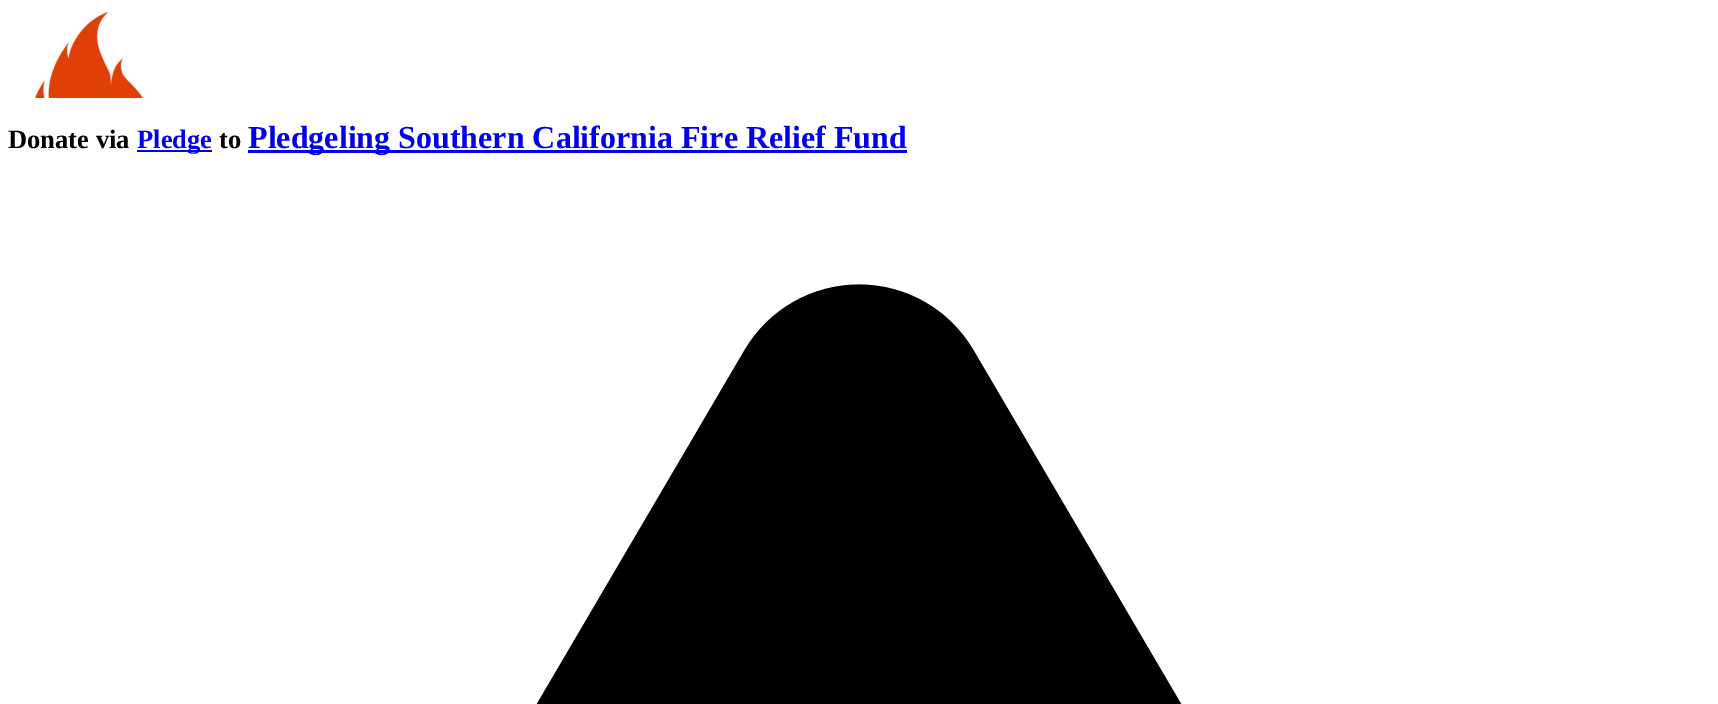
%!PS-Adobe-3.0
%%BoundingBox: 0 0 1718 704
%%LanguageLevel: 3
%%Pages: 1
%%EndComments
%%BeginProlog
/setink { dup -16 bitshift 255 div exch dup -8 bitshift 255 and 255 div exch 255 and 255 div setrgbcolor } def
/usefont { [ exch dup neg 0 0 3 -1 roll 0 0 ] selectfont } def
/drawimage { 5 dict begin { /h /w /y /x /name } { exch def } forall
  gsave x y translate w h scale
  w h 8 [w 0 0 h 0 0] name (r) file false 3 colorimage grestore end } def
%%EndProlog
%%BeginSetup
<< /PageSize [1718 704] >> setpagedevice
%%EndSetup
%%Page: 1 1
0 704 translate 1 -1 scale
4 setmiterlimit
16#FFFFFF setink
0 0 1718 704 rectfill
(img1.raw) 32 8 119 90 drawimage
/LiberationSerif-Bold 26.5 usefont
16#000000 setink
8 148 moveto (Donate via) show
16#0000EE setink
137 150 75 2 rectfill
137 148 moveto (Pledge) show
16#000000 setink
219 148 moveto (to) show
16#0000EE setink
248 150 659 3 rectfill
/LiberationSerif-Bold 32 usefont
248 148 moveto (Pledgeling Southern California Fire Relief Fund) show
(img2.raw) 536 284 646 420 drawimage
showpage
%%EOF
